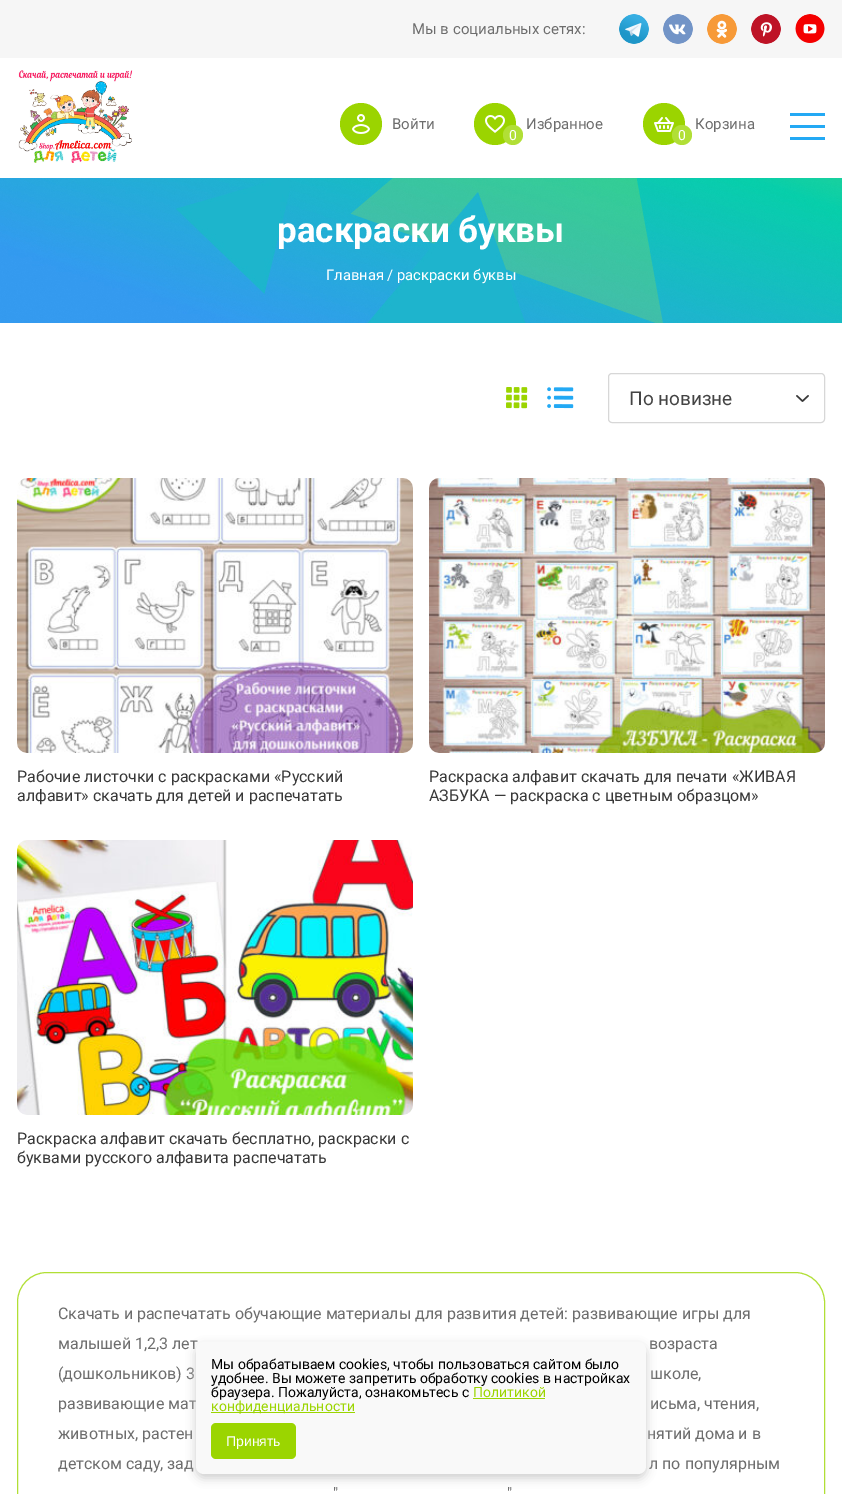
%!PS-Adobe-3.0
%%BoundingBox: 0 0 842 1494
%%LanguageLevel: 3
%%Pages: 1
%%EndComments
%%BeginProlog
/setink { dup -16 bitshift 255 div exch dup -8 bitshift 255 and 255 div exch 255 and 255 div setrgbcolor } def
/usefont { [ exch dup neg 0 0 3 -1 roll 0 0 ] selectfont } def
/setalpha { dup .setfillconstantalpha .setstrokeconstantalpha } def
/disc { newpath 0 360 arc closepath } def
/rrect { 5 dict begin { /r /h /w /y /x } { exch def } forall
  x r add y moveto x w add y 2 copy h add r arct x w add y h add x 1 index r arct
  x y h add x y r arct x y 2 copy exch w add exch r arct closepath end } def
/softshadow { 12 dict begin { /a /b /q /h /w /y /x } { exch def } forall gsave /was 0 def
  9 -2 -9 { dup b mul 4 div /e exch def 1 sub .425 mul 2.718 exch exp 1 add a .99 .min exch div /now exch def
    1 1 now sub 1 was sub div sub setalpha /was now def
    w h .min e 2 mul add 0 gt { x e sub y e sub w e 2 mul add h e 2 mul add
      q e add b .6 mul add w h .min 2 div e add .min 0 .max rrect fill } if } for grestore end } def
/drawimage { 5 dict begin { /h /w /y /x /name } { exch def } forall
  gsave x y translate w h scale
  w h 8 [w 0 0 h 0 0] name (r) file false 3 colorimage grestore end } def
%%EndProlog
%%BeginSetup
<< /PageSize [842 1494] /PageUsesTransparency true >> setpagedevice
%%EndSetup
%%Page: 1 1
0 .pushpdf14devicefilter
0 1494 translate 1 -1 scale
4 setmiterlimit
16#FFFFFF setink
0 0 842 1494 rectfill
16#F6F6F6 setink
0 0 842 58 rectfill
/Roboto-Regular 15 usefont
16#6D6D6D setink
412 34 moveto (Мы в социальных сетях:) show
(img1.raw) 619 14 30 30 drawimage
(img2.raw) 663 14 30 30 drawimage
(img3.raw) 707 14 30 30 drawimage
(img4.raw) 751 14 30 30 drawimage
(img5.raw) 795 14 30 29 drawimage
(img6.raw) 18 70 115 93 drawimage
16#9BD400 setink
361 124 21 disc fill
(img7.raw) 352 114 18 20 drawimage
16#6D6D6D setink
392 129 moveto (Войти) show
526 129 moveto (Избранное) show
16#9BD400 setink
495 124 21 disc fill
(img8.raw) 485 115 20 18 drawimage
16#B1DF36 setink
513 135 10 disc fill
/Roboto-Regular 14 usefont
16#FFFFFF setink
509 140 moveto (0) show
/Roboto-Regular 15 usefont
16#6D6D6D setink
695 129 moveto (Корзина) show
16#9BD400 setink
664 124 21 disc fill
(img9.raw) 654 117 20 15 drawimage
16#B1DF36 setink
682 135 10 disc fill
/Roboto-Regular 14 usefont
16#FFFFFF setink
678 140 moveto (0) show
[
    [790 113 35 3 16#23A9F4]
    [790 125 35 3 16#23A9F4]
    [790 137 35 3 16#23A9F4]
] { aload pop setink rectfill } forall
(img10.raw) 0 178 842 145 drawimage
/Roboto-Bold 35 usefont
16#FFFFFF setink
277 242 moveto (раскраски буквы) show
/Roboto-Regular 14.75 usefont
326 280 moveto (Главная / раскраски буквы) show
(img11.raw) 506 387 22 22 drawimage
(img12.raw) 547 387 27 22 drawimage
16#D7D7D7 setink
608.5 373.5 216 49 3.5 rrect stroke
/Roboto-Regular 19 usefont
16#444444 setink
629 405 moveto (По новизне) show
(img13.raw) 796 395 13 7 drawimage
(img14.raw) 17 478 396 275 drawimage
/Roboto-Regular 16 usefont
16#383838 setink
17 782 moveto (Рабочие листочки с раскрасками «Русский) show
17 801 moveto (алфавит» скачать для детей и распечатать) show
(img15.raw) 429 478 396 275 drawimage
429 782 moveto (Раскраска алфавит скачать для печати «ЖИВАЯ) show
429 801 moveto (АЗБУКА — раскраска с цветным образцом») show
(img16.raw) 17 840 396 275 drawimage
17 1144 moveto (Раскраска алфавит скачать бесплатно, раскраски с) show
17 1163 moveto (буквами русского алфавита распечатать) show
16#B1DF36 setink
17.5 1272.5 807 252 29.5 rrect stroke
16#6D6D6D setink
[
    [(Скачать и распечатать обучающие материалы для развития детей: развивающие игры для) 58 1319]
    [(малышей 1,2,3 лет) 58 1349]
    [(возраста) 649 1349]
    [(\(дошкольников\) 3) 58 1379]
    [(школе,) 650 1379]
    [(развивающие мат) 58 1409]
    [(исьма, чтения,) 650 1409]
    [(животных, растен) 58 1439]
    [(нятий дома и в) 647 1439]
    [(детском саду, зад) 58 1469]
    [(л по популярным) 649 1469]
    [(") 333 1499]
    [(") 507 1499]
] { aload pop moveto show } forall
16#CCCCCC setink
196 1346 450 132 8 5 1 softshadow
16#F9F9F9 setink
196 1342 450 132 8 rrect fill
/Roboto-Regular 14 usefont
16#000000 setink
[
    [(Мы обрабатываем cookies, чтобы пользоваться сайтом было) 211 1369]
    [(удобнее. Вы можете запретить обработку cookies в настройках) 211 1383]
    [(браузера. Пожалуйста, ознакомьтесь с) 211 1397]
] { aload pop moveto show } forall
16#9BD500 setink
473 1397 moveto (Политикой) show
473 1398 72 1 rectfill
211 1412 144 1 rectfill
211 1411 moveto (конфиденциальности) show
211 1423 85 36 5 rrect fill
/LiberationSans-Regular 14 usefont
16#FFFFFF setink
226 1446 moveto (Принять) show
.poppdf14devicefilter showpage
%%EOF
